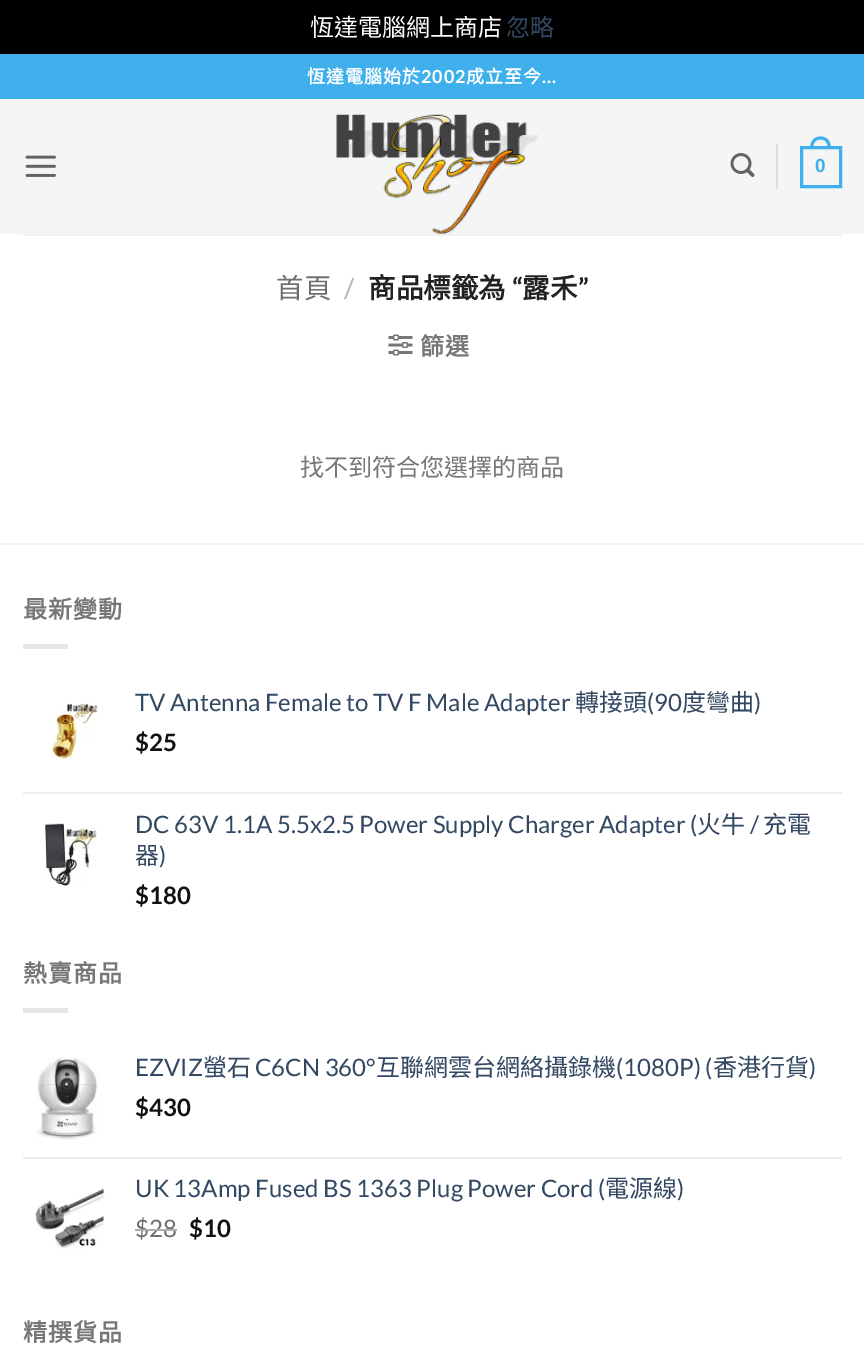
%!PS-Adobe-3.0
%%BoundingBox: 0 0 864 1362
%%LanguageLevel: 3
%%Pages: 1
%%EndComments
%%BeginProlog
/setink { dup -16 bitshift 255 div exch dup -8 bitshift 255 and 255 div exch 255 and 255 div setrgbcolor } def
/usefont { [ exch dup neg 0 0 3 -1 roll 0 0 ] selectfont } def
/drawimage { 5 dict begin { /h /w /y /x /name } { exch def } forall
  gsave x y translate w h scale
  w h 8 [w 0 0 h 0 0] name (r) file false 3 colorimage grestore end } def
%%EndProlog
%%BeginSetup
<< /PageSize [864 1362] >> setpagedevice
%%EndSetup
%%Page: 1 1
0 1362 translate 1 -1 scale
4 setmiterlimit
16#000000 setink
0 0 864 1362 rectfill
/NotoSansCJKHK-Regular 24 usefont
16#FFFFFF setink
310 36 moveto (恆達電腦網上商店) show
16#334862 setink
506 36 moveto (忽略) show
16#FFFFFF setink
0 234 864 1128 rectfill
16#40B0EC setink
0 54 864 45 rectfill
/NotoSansCJKHK-Bold 18 usefont
16#FFFFFF setink
307 83 moveto 1 0 (恆達電腦始於) ashow
/Lato-Bold 18 usefont
421 83 moveto 1 0 (2002) ashow
/NotoSansCJKHK-Bold 18 usefont
466 83 moveto 1 0 (成立至今) ashow
/Lato-Bold 18 usefont
542 83 moveto 1 0 (...) ashow
16#F5F5F5 setink
0 99 864 135 rectfill
(img1.raw) 25 155 31 22 drawimage
(img2.raw) 336 114 203 120 drawimage
(img3.raw) 730 153 25 24 drawimage
16#DDDDDD setink
776 144 2 45 rectfill
16#40B0EC setink
3 setlinewidth
801.5 147.5 39 39 rectstroke
820.5 136.5 moveto 827.5 136.5 831 142 831 148.5 curveto 810 148.5 lineto 810 142 813.5 136.5 820.5 136.5 curveto closepath 820.5 139.5 moveto 826 139.5 828 144 828 148.5 curveto 813 148.5 lineto 813 144 815 139.5 820.5 139.5 curveto closepath eofill
/LiberationSans-Bold 19 usefont
815 172 moveto (0) show
16#F1F1F1 setink
23 234 819 2 rectfill
/NotoSansCJKHK-Regular 27.5 usefont
16#6E6E6E setink
276 298 moveto (首頁) show
/Lato-Regular 27.5 usefont
16#B2B2B2 setink
344 298 moveto (/) show
/NotoSansCJKHK-Bold 27.5 usefont
16#222222 setink
368 298 moveto (商品標籤為) show
/Lato-Bold 27.5 usefont
512 298 moveto (“) show
/NotoSansCJKHK-Bold 27.5 usefont
522 298 moveto (露禾) show
/Lato-Bold 27.5 usefont
578 298 moveto (”) show
(img4.raw) 388 334 25 22 drawimage
/NotoSansCJKHK-Bold 24 usefont
16#777777 setink
420 355 moveto 1 0 (篩選) ashow
/NotoSansCJKHK-Regular 24 usefont
300 476 moveto (找不到符合您選擇的商品) show
16#F2F2F2 setink
0 543 864 2 rectfill
/NotoSansCJKHK-Bold 24 usefont
16#777777 setink
23 618 moveto 1 0 (最新變動) ashow
16#E6E6E6 setink
23 644 45 5 rectfill
(img5.raw) 51 701 48 59 drawimage
/Lato-Regular 24 usefont
16#334862 setink
135 711 moveto (TV Antenna Female to TV F Male Adapter) show
/NotoSansCJKHK-Regular 24 usefont
575 711 moveto (轉接頭) show
/Lato-Regular 24 usefont
647 711 moveto (\(90) show
/NotoSansCJKHK-Regular 24 usefont
682 711 moveto (度彎曲) show
/Lato-Regular 24 usefont
754 711 moveto (\)) show
/Lato-Bold 24 usefont
16#111111 setink
135 751 moveto ($25) show
16#ECECEC setink
23 792 819 2 rectfill
(img6.raw) 44 823 54 65 drawimage
/Lato-Regular 24 usefont
16#334862 setink
135 833 moveto (DC 63V 1.1A 5.5x2.5 Power Supply Charger Adapter \() show
/NotoSansCJKHK-Regular 24 usefont
697 833 moveto (火牛) show
/Lato-Regular 24 usefont
750 833 moveto (/) show
/NotoSansCJKHK-Regular 24 usefont
763 833 moveto (充電) show
135 864 moveto (器) show
/Lato-Regular 24 usefont
159 864 moveto (\)) show
/Lato-Bold 24 usefont
16#111111 setink
135 904 moveto ($180) show
/NotoSansCJKHK-Bold 24 usefont
16#777777 setink
23 982 moveto 1 0 (熱賣商品) ashow
16#E6E6E6 setink
23 1008 45 5 rectfill
(img7.raw) 37 1057 61 83 drawimage
/Lato-Regular 24 usefont
16#334862 setink
135 1076 moveto (EZVIZ) show
/NotoSansCJKHK-Regular 24 usefont
203 1076 moveto (螢石) show
/Lato-Regular 24 usefont
255 1076 moveto (C6CN 360°) show
/NotoSansCJKHK-Regular 24 usefont
376 1076 moveto (互聯網雲台網絡攝錄機) show
/Lato-Regular 24 usefont
616 1076 moveto (\(1080P\) \() show
/NotoSansCJKHK-Regular 24 usefont
713 1076 moveto (香港行貨) show
/Lato-Regular 24 usefont
809 1076 moveto (\)) show
/Lato-Bold 24 usefont
16#111111 setink
135 1116 moveto ($430) show
16#ECECEC setink
23 1157 819 2 rectfill
(img8.raw) 33 1188 72 61 drawimage
/Lato-Regular 24 usefont
16#334862 setink
135 1197 moveto (UK 13Amp Fused BS 1363 Plug Power Cord \() show
/NotoSansCJKHK-Regular 24 usefont
605 1197 moveto (電源線) show
/Lato-Regular 24 usefont
677 1197 moveto (\)) show
16#6E6E6E setink
135 1237 moveto ($28) show
16#ADADAD setink
135 1229 42 2 rectfill
/Lato-Bold 24 usefont
16#111111 setink
189 1237 moveto ($10) show
/NotoSansCJKHK-Bold 24 usefont
16#777777 setink
23 1341 moveto 1 0 (精撰貨品) ashow
showpage
%%EOF
